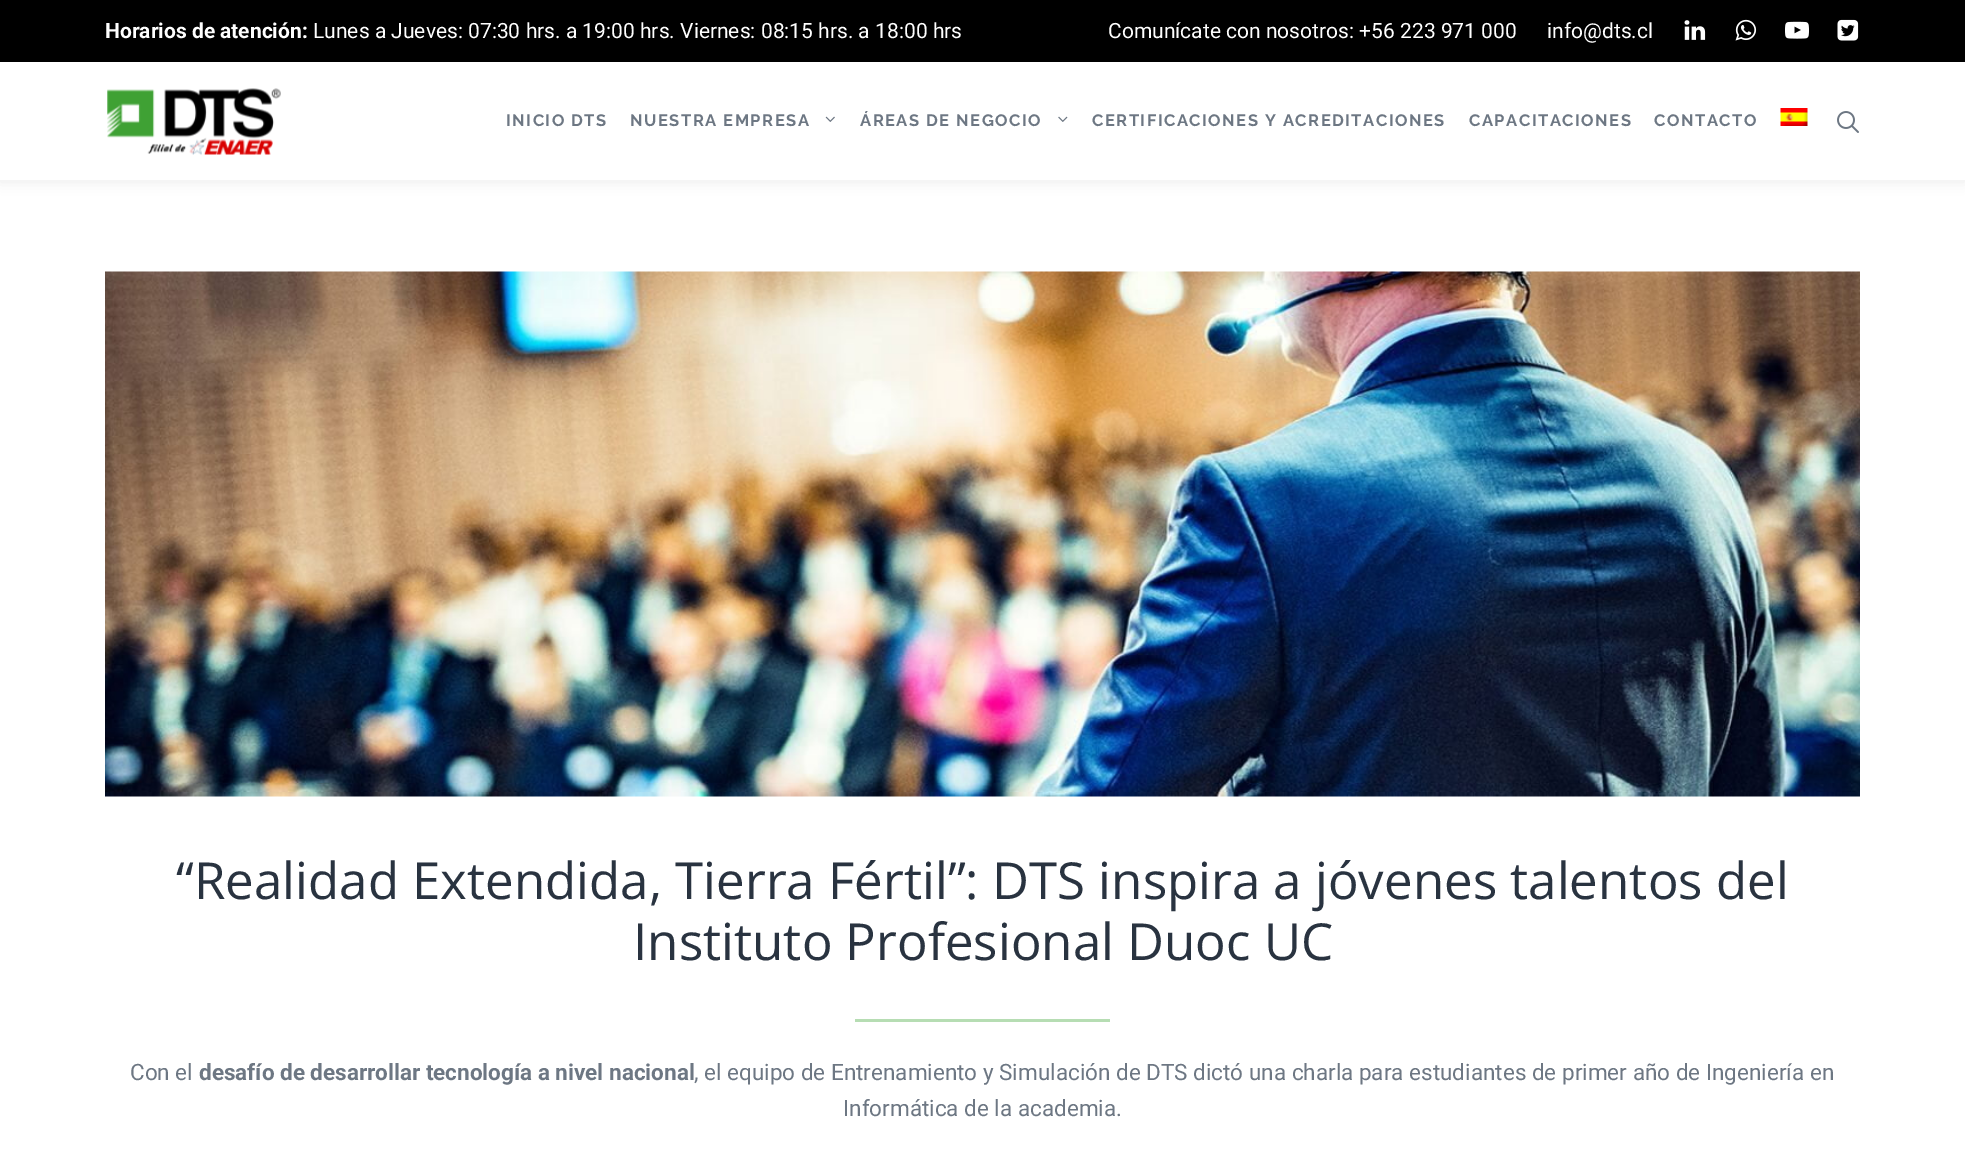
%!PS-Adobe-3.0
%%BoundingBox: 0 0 1965 1149
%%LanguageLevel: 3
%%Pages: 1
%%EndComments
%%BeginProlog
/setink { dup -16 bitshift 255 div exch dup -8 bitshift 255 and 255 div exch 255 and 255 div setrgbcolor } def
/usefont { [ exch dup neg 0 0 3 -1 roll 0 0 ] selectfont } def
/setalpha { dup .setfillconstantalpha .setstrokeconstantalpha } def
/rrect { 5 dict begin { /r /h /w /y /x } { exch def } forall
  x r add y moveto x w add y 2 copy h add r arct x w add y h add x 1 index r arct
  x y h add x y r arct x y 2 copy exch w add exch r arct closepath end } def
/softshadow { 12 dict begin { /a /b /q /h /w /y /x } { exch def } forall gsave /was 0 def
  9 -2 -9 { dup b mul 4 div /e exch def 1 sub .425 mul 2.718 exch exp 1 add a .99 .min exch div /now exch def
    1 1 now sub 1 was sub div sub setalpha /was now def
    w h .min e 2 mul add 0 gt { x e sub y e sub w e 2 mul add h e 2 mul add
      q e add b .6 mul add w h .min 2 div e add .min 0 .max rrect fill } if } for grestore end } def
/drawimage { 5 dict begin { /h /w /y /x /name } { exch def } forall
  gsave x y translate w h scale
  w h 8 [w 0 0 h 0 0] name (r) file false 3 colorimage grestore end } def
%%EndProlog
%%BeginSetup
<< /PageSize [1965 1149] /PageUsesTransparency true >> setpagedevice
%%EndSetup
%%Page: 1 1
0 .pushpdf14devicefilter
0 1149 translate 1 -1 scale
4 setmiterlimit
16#FFFFFF setink
0 0 1965 1149 rectfill
16#000000 setink
0 62 1965 120 0 6 0.07 softshadow
0 0 1965 62 rectfill
/Roboto-Bold 21 usefont
16#FFFFFF setink
105 38 moveto (Horarios de atención:) show
/Roboto-Regular 21 usefont
[
    [(Lunes a Jueves: 07:30 hrs. a 19:00 hrs. Viernes: 08:15 hrs. a 18:00 hrs) 313 38]
    [(Comunícate con nosotros: +56 223 971 000) 1108 38]
    [(info@dts.cl) 1547 38]
] { aload pop moveto show } forall
(img1.raw) 1684 20 22 20 drawimage
(img2.raw) 1735 19 22 22 drawimage
(img3.raw) 1785 21 24 18 drawimage
(img4.raw) 1837 19 22 22 drawimage
0 62 1965 118 rectfill
16#F5F5F5 setink
0 180 1965 2 rectfill
(img5.raw) 107 88 174 67 drawimage
/Raleway-Bold 16.5 usefont
16#6D7783 setink
506 126 moveto 1.5 0 (INICIO DTS) ashow
630 126 moveto 1.5 0 (NUESTRA EMPRESA) ashow
(img6.raw) 825 116 10 6 drawimage
860 126 moveto 1.5 0 (ÁREAS DE NEGOCIO) ashow
(img7.raw) 1058 116 10 6 drawimage
1092 126 moveto 1.5 0 (CERTIFICACIONES Y ACREDITACIONES) ashow
1469 126 moveto 1.5 0 (CAPACITACIONES) ashow
1654 126 moveto 1.5 0 (CONTACTO) ashow
(img8.raw) 1780 108 28 18 drawimage
(img9.raw) 1837 111 22 22 drawimage
(img10.raw) 105 271 1755 526 drawimage
/OpenSans-Regular 51 usefont
16#293340 setink
176 899 moveto (“Realidad Extendida, Tierra Fértil”: DTS inspira a jóvenes talentos del) show
633 960 moveto (Instituto Profesional Duoc UC) show
16#B6DDB3 setink
855 1019 255 3 rectfill
/Roboto-Regular 22.5 usefont
16#6D7783 setink
130 1080 moveto (Con el) show
/Roboto-Bold 22.5 usefont
199 1080 moveto (desafío de desarrollar tecnología a nivel nacional) show
/Roboto-Regular 22.5 usefont
694 1080 moveto (, el equipo de Entrenamiento y Simulación de DTS dictó una charla para estudiantes de primer año de Ingeniería en) show
843 1116 moveto (Informática de la academia.) show
.poppdf14devicefilter showpage
%%EOF
